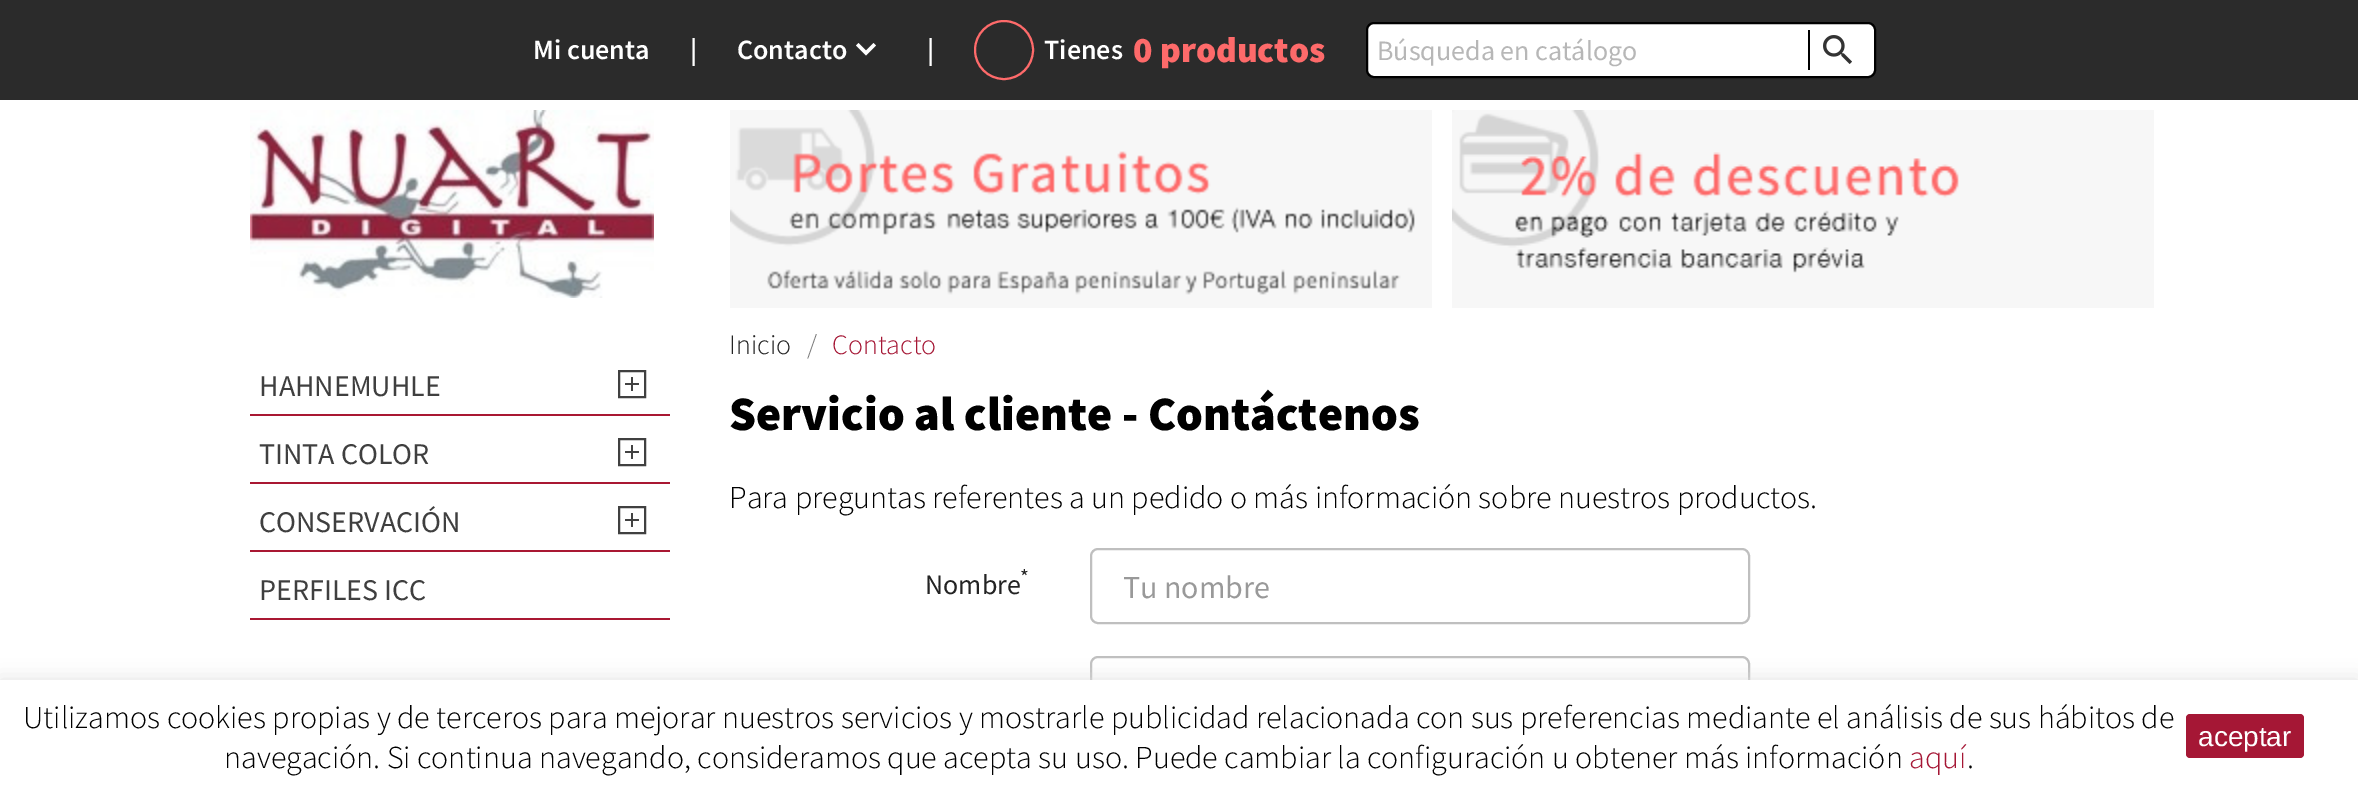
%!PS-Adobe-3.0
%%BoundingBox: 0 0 2358 792
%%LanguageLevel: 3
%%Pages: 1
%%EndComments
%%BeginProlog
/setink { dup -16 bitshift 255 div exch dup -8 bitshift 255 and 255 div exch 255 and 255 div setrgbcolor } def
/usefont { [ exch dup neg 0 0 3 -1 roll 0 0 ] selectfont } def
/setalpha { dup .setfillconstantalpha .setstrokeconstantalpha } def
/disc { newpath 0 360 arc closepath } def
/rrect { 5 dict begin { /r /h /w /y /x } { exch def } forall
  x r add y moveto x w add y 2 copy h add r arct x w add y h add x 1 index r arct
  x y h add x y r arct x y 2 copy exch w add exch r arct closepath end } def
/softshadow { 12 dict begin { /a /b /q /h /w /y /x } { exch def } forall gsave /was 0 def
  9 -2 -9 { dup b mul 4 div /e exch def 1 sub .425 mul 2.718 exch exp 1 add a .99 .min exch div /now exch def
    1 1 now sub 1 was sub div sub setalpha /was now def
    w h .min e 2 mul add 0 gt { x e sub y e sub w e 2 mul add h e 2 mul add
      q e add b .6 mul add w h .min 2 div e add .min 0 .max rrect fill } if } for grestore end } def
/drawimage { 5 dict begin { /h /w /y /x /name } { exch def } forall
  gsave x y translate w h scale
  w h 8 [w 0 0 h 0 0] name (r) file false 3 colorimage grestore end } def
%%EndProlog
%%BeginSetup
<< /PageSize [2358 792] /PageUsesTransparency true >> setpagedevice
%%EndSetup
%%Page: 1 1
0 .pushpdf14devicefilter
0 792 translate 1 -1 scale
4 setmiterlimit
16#FFFFFF setink
0 0 2358 792 rectfill
16#2B2B2B setink
0 0 2358 100 rectfill
/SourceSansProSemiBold-SemiBold 28 usefont
16#FFFFFF setink
[
    [(Mi cuenta) 533 59]
    [(|) 690 59]
    [(Contacto) 737 59]
] { aload pop moveto show } forall
858.5 43 moveto 866 50.5 lineto 873.5 43 lineto 876 45.5 lineto 866 55.5 lineto 856 45.5 lineto closepath fill
927 59 moveto (|) show
16#FE6A6A setink
2 setlinewidth
1004 50 29 disc stroke
16#FFFFFF setink
1044 59 moveto (Tienes) show
/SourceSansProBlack-Black 36 usefont
16#FE6A6A setink
1133 62 moveto (0 productos) show
16#FFFFFF setink
1367 23 508 54 7 rrect gsave fill grestore
16#000000 setink
stroke
/SourceSansPro-Regular 28 usefont
16#B7B7B7 setink
1377 60 moveto (Búsqueda en catálogo) show
16#000000 setink
1808 30 2 40 rectfill
(img1.raw) 1823 35 29 29 drawimage
(img2.raw) 250 110 404 188 drawimage
(img3.raw) 730 110 702 198 drawimage
(img4.raw) 1452 110 702 198 drawimage
16#A91833 setink
250 414 420 2 rectfill
/SourceSansPro-Regular 30 usefont
16#3F3F3F setink
259 396 moveto (HAHNEMUHLE) show
16#404040 setink
619 371 26 26 rectstroke
(img5.raw) 625 377 14 14 drawimage
16#A91833 setink
250 482 420 2 rectfill
16#3F3F3F setink
259 464 moveto (TINTA COLOR) show
16#404040 setink
619 439 26 26 rectstroke
(img5.raw) 625 445 14 14 drawimage
16#A91833 setink
250 550 420 2 rectfill
16#3F3F3F setink
259 532 moveto (CONSERVACIÓN) show
16#404040 setink
619 507 26 26 rectstroke
(img5.raw) 625 513 14 14 drawimage
16#A91833 setink
250 618 420 2 rectfill
16#3F3F3F setink
259 600 moveto (PERFILES ICC) show
/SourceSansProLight-Light 28 usefont
16#232323 setink
729 354 moveto (Inicio) show
16#7A7A7A setink
807 354 moveto (/) show
16#A51735 setink
832 354 moveto (Contacto) show
/SourceSansProBlack-Black 48 usefont
16#000000 setink
729 430 moveto (Servicio al cliente - Contáctenos) show
/SourceSansProLight-Light 32 usefont
729 508 moveto (Para preguntas referentes a un pedido o más información sobre nuestros productos.) show
/SourceSansPro-Regular 21 usefont
16#232323 setink
1020 584 moveto (*) show
/SourceSansPro-Regular 28 usefont
925 594 moveto (Nombre) show
16#BFBFBF setink
1091 549 658 74 7 rrect stroke
/SourceSansPro-Regular 32 usefont
16#999999 setink
1123 598 moveto (Tu nombre) show
16#BFBFBF setink
1091 657 658 74 7 rrect stroke
16#E0E0E0 setink
0 680 2358 112 0 10 1 softshadow
16#FFFFFF setink
0 680 2358 112 rectfill
/SourceSansProLight-Light 32 usefont
16#000000 setink
23 728 moveto (Utilizamos cookies propias y de terceros para mejorar nuestros servicios y mostrarle publicidad relacionada con sus preferencias mediante el análisis de sus hábitos de) show
224 768 moveto (navegación. Si continua navegando, consideramos que acepta su uso. Puede cambiar la configuración u obtener más información) show
16#A51735 setink
1909 768 moveto (aquí) show
16#000000 setink
1967 768 moveto (.) show
16#A51735 setink
2186 714 118 44 4 rrect fill
/LiberationSans-Regular 28 usefont
16#FFFFFF setink
2198 746 moveto (aceptar) show
.poppdf14devicefilter showpage
%%EOF
